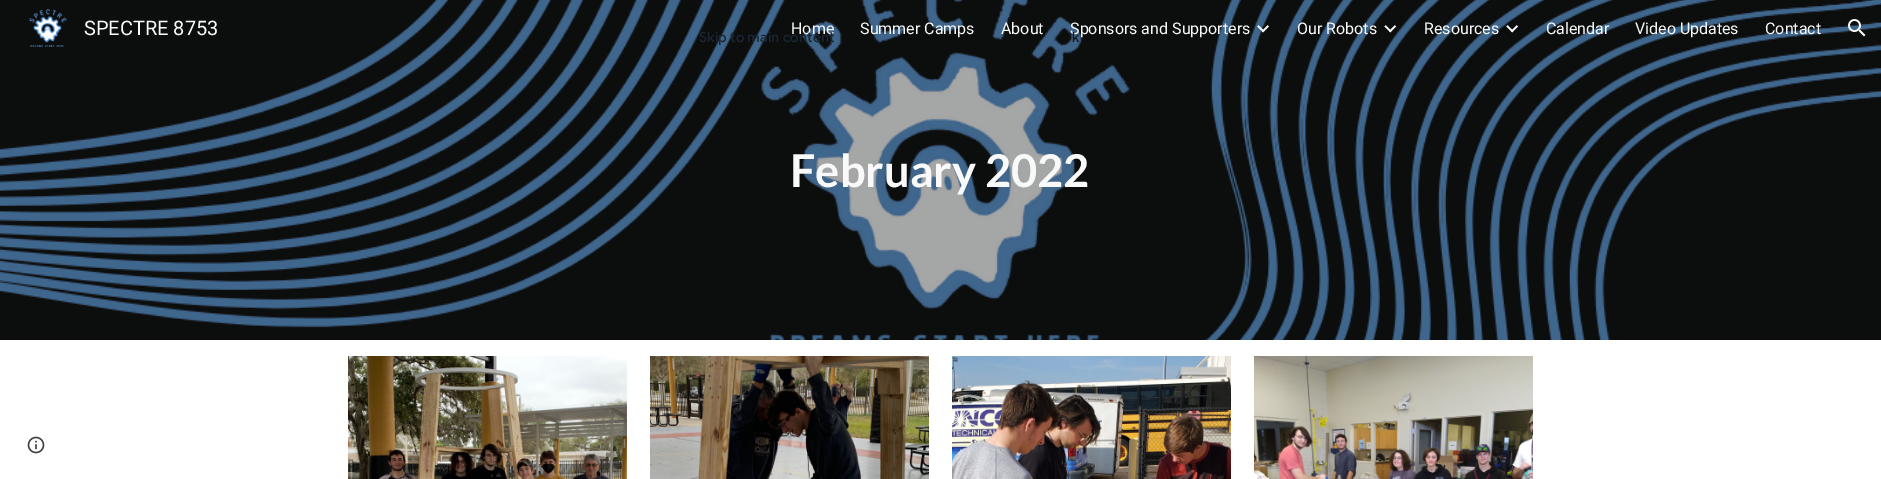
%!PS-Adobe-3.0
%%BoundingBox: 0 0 1881 479
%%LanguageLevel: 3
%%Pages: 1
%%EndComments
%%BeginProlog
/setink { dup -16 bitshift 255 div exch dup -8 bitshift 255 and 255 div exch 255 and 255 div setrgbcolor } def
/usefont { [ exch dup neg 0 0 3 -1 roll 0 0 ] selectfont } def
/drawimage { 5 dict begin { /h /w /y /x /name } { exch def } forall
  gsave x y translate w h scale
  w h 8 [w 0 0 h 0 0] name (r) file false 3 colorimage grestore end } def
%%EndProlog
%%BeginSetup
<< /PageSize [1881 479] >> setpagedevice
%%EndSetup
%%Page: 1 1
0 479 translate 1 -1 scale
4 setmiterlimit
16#FFFFFF setink
0 0 1881 479 rectfill
(img6.raw) 0 0 1881 340 drawimage
(img1.raw) 29 9 38 38 drawimage
/Roboto-Regular 20 usefont
16#F9F9F9 setink
84 35 moveto (SPECTRE 8753) show
/Roboto-Regular 16 usefont
[
    [(Home) 791 34]
    [(Summer Camps) 860 34]
    [(About) 1001 34]
    [(Sponsors and Supporters) 1070 34]
] { aload pop moveto show } forall
(img2.raw) 1257 25 12 8 drawimage
1297 34 moveto (Our Robots) show
(img3.raw) 1384 25 13 8 drawimage
1424 34 moveto (Resources) show
(img4.raw) 1506 25 12 8 drawimage
[
    [(Calendar) 1546 34]
    [(Video Updates) 1635 34]
    [(Contact) 1765 34]
] { aload pop moveto show } forall
(img5.raw) 1848 19 18 18 drawimage
/Lato-Bold 45.25 usefont
790 187 moveto (February 2022) show
(img7.raw) 348 356 279 123 drawimage
(img8.raw) 650 356 279 123 drawimage
(img9.raw) 952 356 279 123 drawimage
(img10.raw) 1254 356 279 123 drawimage
(img11.raw) 27 436 18 18 drawimage
/GoogleSans-Medium 14 usefont
16#1B2630 setink
699 42 moveto 0.1 0 (Skip to main content) ashow
16#161A1D setink
1072 42 moveto 0.1 0 (k) ashow
showpage
%%EOF
